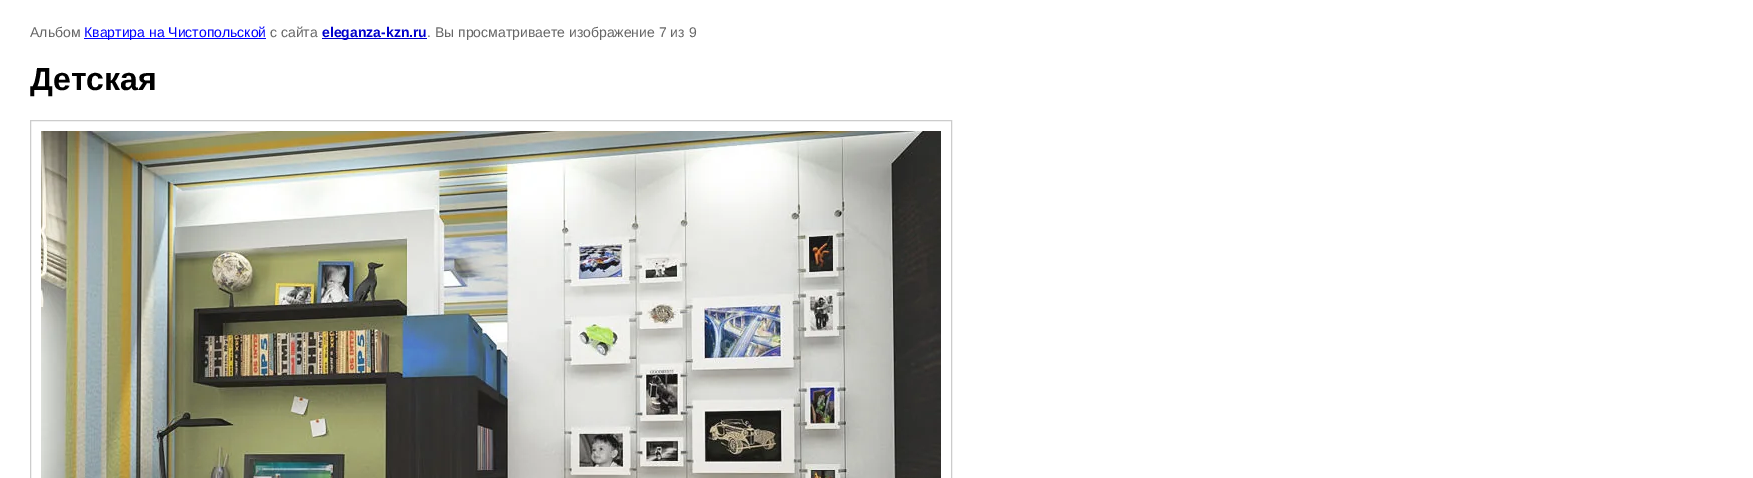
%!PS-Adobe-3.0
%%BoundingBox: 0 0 1753 478
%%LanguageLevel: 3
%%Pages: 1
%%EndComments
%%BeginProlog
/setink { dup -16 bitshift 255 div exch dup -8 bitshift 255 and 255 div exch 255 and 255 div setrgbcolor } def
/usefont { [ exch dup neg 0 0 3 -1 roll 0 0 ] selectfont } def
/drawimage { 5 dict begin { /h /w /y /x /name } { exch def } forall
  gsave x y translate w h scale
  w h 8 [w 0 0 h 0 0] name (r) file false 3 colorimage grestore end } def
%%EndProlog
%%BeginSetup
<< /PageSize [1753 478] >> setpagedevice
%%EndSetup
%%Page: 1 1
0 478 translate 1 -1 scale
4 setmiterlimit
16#FFFFFF setink
0 0 1753 478 rectfill
/LiberationSans-Regular 14 usefont
16#666666 setink
30 37 moveto (Альбом) show
16#0000FF setink
84 38 182 1 rectfill
84 37 moveto (Квартира на Чистопольской) show
16#666666 setink
270 37 moveto (с сайта) show
16#0000CC setink
322 38 105 1 rectfill
/LiberationSans-Bold 14 usefont
322 37 moveto (eleganza-kzn.ru) show
/LiberationSans-Regular 14 usefont
16#666666 setink
427 37 moveto (. Вы просматриваете изображение 7 из 9) show
/LiberationSans-Bold 32 usefont
16#000000 setink
30 90 moveto (Детская) show
16#CCCCCC setink
30.5 120.5 921 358 rectstroke
(img1.raw) 41 131 900 347 drawimage
showpage
%%EOF
